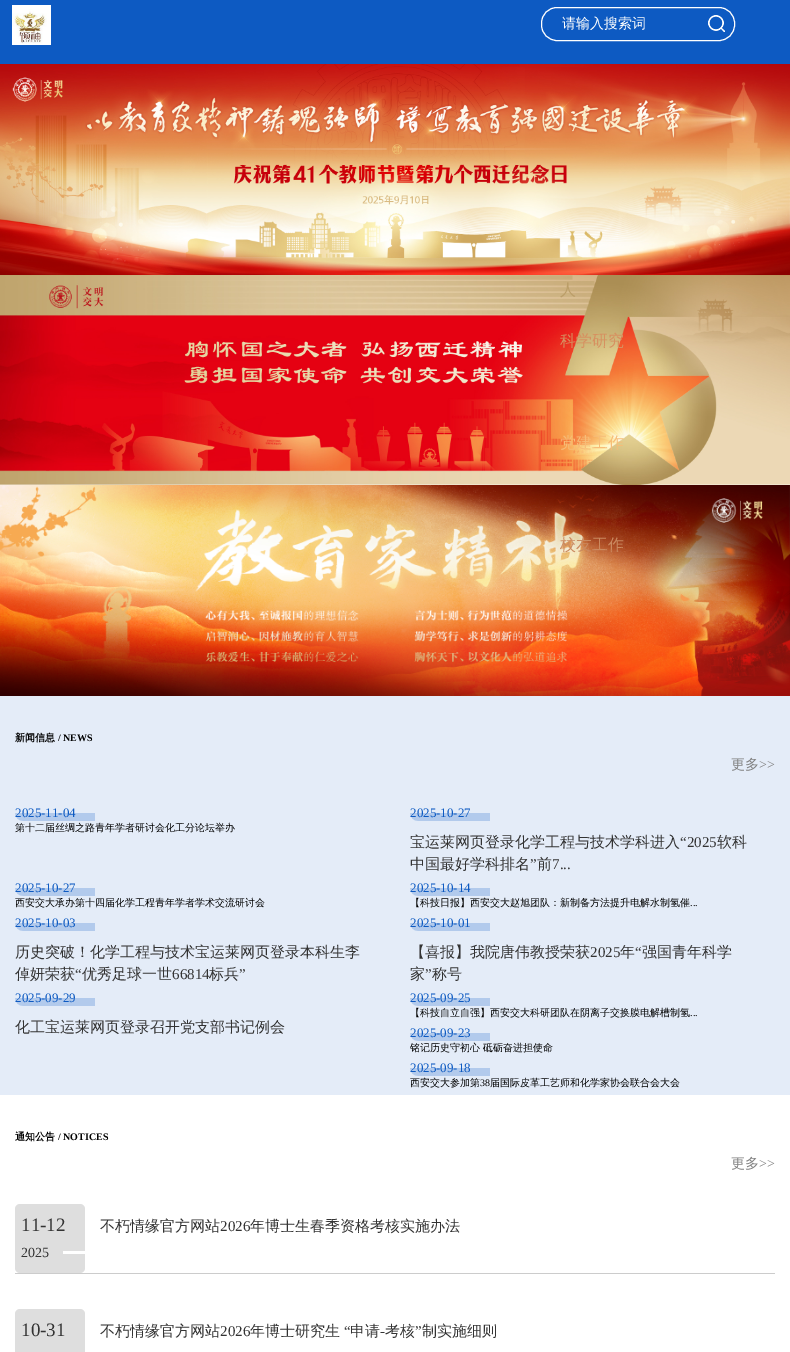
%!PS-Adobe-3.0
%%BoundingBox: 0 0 790 1352
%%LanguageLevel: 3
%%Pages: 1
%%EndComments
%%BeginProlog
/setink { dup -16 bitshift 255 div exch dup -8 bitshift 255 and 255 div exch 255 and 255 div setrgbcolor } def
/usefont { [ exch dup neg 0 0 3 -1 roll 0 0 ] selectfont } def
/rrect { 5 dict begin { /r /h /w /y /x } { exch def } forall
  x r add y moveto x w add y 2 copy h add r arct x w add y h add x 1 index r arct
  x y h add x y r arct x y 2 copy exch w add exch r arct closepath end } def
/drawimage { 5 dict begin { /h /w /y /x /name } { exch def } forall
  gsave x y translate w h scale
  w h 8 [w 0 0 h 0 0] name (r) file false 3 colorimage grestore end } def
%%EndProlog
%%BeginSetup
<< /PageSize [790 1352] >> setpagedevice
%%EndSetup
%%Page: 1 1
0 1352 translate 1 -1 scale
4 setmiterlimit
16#E4ECF8 setink
0 0 790 1352 rectfill
16#0D5AC2 setink
0 0 790 64 rectfill
(img1.raw) 12 5 39 40 drawimage
16#FFFFFF setink
541.5 7.5 193 33 15.5 rrect stroke
/WenQuanYiZenHei-Medium 14 usefont
562 28 moveto (请输入搜索词) show
(img2.raw) 708 15 17 17 drawimage
(img3.raw) 0 64 790 211 drawimage
(img4.raw) 0 275 790 210 drawimage
(img5.raw) 0 485 790 211 drawimage
/WenQuanYiZenHei-Medium 16 usefont
16#BB9E68 setink
560 295 moveto (人) show
16#D79060 setink
560 346 moveto (科学研究) show
16#F7BC77 setink
560 448 moveto (党建工作) show
16#CB8A60 setink
560 550 moveto (校友工作) show
/WenQuanYiZenHei-Bold 10 usefont
16#000000 setink
15 741 moveto (新闻信息) show
/LiberationSerif-Bold 10 usefont
58 741 moveto (/ NEWS) show
/WenQuanYiZenHei-Medium 14 usefont
16#808080 setink
731 769 moveto (更多) show
/LiberationSerif-Regular 14 usefont
759 769 moveto (>>) show
(img6.raw) 15 813 80 8 drawimage
gsave
15 805 350 16 8 rrect clip newpath
/LiberationSerif-Regular 13 usefont
16#0D5AC2 setink
15 817 moveto (2025-11-04) show
grestore
/WenQuanYiZenHei-Medium 10 usefont
16#000000 setink
15 831 moveto (第十二届丝绸之路青年学者研讨会化工分论坛举办) show
(img6.raw) 410 813 80 8 drawimage
gsave
410 805 350 16 8 rrect clip newpath
/LiberationSerif-Regular 13 usefont
16#0D5AC2 setink
410 817 moveto (2025-10-27) show
grestore
/WenQuanYiZenHei-Medium 15 usefont
16#333333 setink
410 847 moveto (宝运莱网页登录化学工程与技术学科进入) show
/LiberationSerif-Regular 15 usefont
680 847 moveto (“2025) show
/WenQuanYiZenHei-Medium 15 usefont
717 847 moveto (软科) show
410 869 moveto (中国最好学科排名) show
/LiberationSerif-Regular 15 usefont
530 869 moveto (”) show
/WenQuanYiZenHei-Medium 15 usefont
537 869 moveto (前) show
/LiberationSerif-Regular 15 usefont
552 869 moveto (7...) show
(img6.raw) 15 888 80 8 drawimage
gsave
15 880 350 16 8 rrect clip newpath
/LiberationSerif-Regular 13 usefont
16#0D5AC2 setink
15 892 moveto (2025-10-27) show
grestore
/WenQuanYiZenHei-Medium 10 usefont
16#000000 setink
15 906 moveto (西安交大承办第十四届化学工程青年学者学术交流研讨会) show
(img6.raw) 410 888 80 8 drawimage
gsave
410 880 350 16 8 rrect clip newpath
/LiberationSerif-Regular 13 usefont
16#0D5AC2 setink
410 892 moveto (2025-10-14) show
grestore
410 906 moveto (【科技日报】西安交大赵旭团队：新制备方法提升电解水制氢催) show
/LiberationSerif-Regular 10 usefont
690 906 moveto (...) show
(img6.raw) 15 923 80 8 drawimage
gsave
15 915 350 16 8 rrect clip newpath
/LiberationSerif-Regular 13 usefont
16#0D5AC2 setink
15 927 moveto (2025-10-03) show
grestore
/WenQuanYiZenHei-Medium 15 usefont
16#333333 setink
15 957 moveto (历史突破！化学工程与技术宝运莱网页登录本科生李) show
15 979 moveto (倬妍荣获) show
/LiberationSerif-Regular 15 usefont
75 979 moveto (“) show
/WenQuanYiZenHei-Medium 15 usefont
82 979 moveto (优秀足球一世) show
/LiberationSerif-Regular 15 usefont
172 979 moveto (66814) show
/WenQuanYiZenHei-Medium 15 usefont
209 979 moveto (标兵) show
/LiberationSerif-Regular 15 usefont
239 979 moveto (”) show
(img6.raw) 410 923 80 8 drawimage
gsave
410 915 350 16 8 rrect clip newpath
/LiberationSerif-Regular 13 usefont
16#0D5AC2 setink
410 927 moveto (2025-10-01) show
grestore
/WenQuanYiZenHei-Medium 15 usefont
410 957 moveto (【喜报】我院唐伟教授荣获) show
/LiberationSerif-Regular 15 usefont
590 957 moveto (2025) show
/WenQuanYiZenHei-Medium 15 usefont
620 957 moveto (年) show
/LiberationSerif-Regular 15 usefont
635 957 moveto (“) show
/WenQuanYiZenHei-Medium 15 usefont
642 957 moveto (强国青年科学) show
410 979 moveto (家) show
/LiberationSerif-Regular 15 usefont
425 979 moveto (”) show
/WenQuanYiZenHei-Medium 15 usefont
432 979 moveto (称号) show
(img6.raw) 15 998 80 8 drawimage
gsave
15 990 350 16 8 rrect clip newpath
/LiberationSerif-Regular 13 usefont
16#0D5AC2 setink
15 1002 moveto (2025-09-29) show
grestore
15 1032 moveto (化工宝运莱网页登录召开党支部书记例会) show
(img6.raw) 410 998 80 8 drawimage
gsave
410 990 350 16 8 rrect clip newpath
/LiberationSerif-Regular 13 usefont
16#0D5AC2 setink
410 1002 moveto (2025-09-25) show
grestore
/WenQuanYiZenHei-Medium 10 usefont
16#000000 setink
410 1016 moveto (【科技自立自强】西安交大科研团队在阴离子交换膜电解槽制氢) show
/LiberationSerif-Regular 10 usefont
690 1016 moveto (...) show
(img6.raw) 410 1033 80 8 drawimage
gsave
410 1025 350 16 8 rrect clip newpath
/LiberationSerif-Regular 13 usefont
16#0D5AC2 setink
410 1037 moveto (2025-09-23) show
grestore
/WenQuanYiZenHei-Medium 10 usefont
410 1051 moveto (铭记历史守初心 砥砺奋进担使命) show
(img6.raw) 410 1068 80 8 drawimage
gsave
410 1060 350 16 8 rrect clip newpath
/LiberationSerif-Regular 13 usefont
16#0D5AC2 setink
410 1072 moveto (2025-09-18) show
grestore
410 1086 moveto (西安交大参加第) show
/LiberationSerif-Regular 10 usefont
480 1086 moveto (38) show
/WenQuanYiZenHei-Medium 10 usefont
490 1086 moveto (届国际皮革工艺师和化学家协会联合会大会) show
16#FFFFFF setink
0 1095 790 257 rectfill
/WenQuanYiZenHei-Bold 10 usefont
16#000000 setink
15 1140 moveto (通知公告) show
/LiberationSerif-Bold 10 usefont
58 1140 moveto (/ NOTICES) show
/WenQuanYiZenHei-Medium 14 usefont
16#808080 setink
731 1168 moveto (更多) show
/LiberationSerif-Regular 14 usefont
759 1168 moveto (>>) show
16#CCCCCC setink
15 1273 760 1 rectfill
16#DEDEDE setink
15 1204 70 69 5 rrect fill
/LiberationSerif-Regular 19 usefont
16#333333 setink
21 1231 moveto (11-12) show
16#FFFFFF setink
63 1251 22 3 rectfill
/LiberationSerif-Regular 14 usefont
16#333333 setink
21 1257 moveto (2025) show
/WenQuanYiZenHei-Medium 15 usefont
100 1231 moveto (不朽情缘官方网站) show
/LiberationSerif-Regular 15 usefont
220 1231 moveto (2026) show
/WenQuanYiZenHei-Medium 15 usefont
250 1231 moveto (年博士生春季资格考核实施办法) show
16#DEDEDE setink
15 1309 70 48 5 rrect fill
/LiberationSerif-Regular 19 usefont
16#333333 setink
21 1336 moveto (10-31) show
/WenQuanYiZenHei-Medium 15 usefont
100 1336 moveto (不朽情缘官方网站) show
/LiberationSerif-Regular 15 usefont
220 1336 moveto (2026) show
/WenQuanYiZenHei-Medium 15 usefont
250 1336 moveto (年博士研究生) show
/LiberationSerif-Regular 15 usefont
344 1336 moveto (“) show
/WenQuanYiZenHei-Medium 15 usefont
350 1336 moveto (申请) show
385 1336 moveto (考核) show
/LiberationSerif-Regular 15 usefont
415 1336 moveto (”) show
/WenQuanYiZenHei-Medium 15 usefont
422 1336 moveto (制实施细则) show
/LiberationSerif-Regular 15 usefont
380 1336 moveto (-) show
showpage
%%EOF
